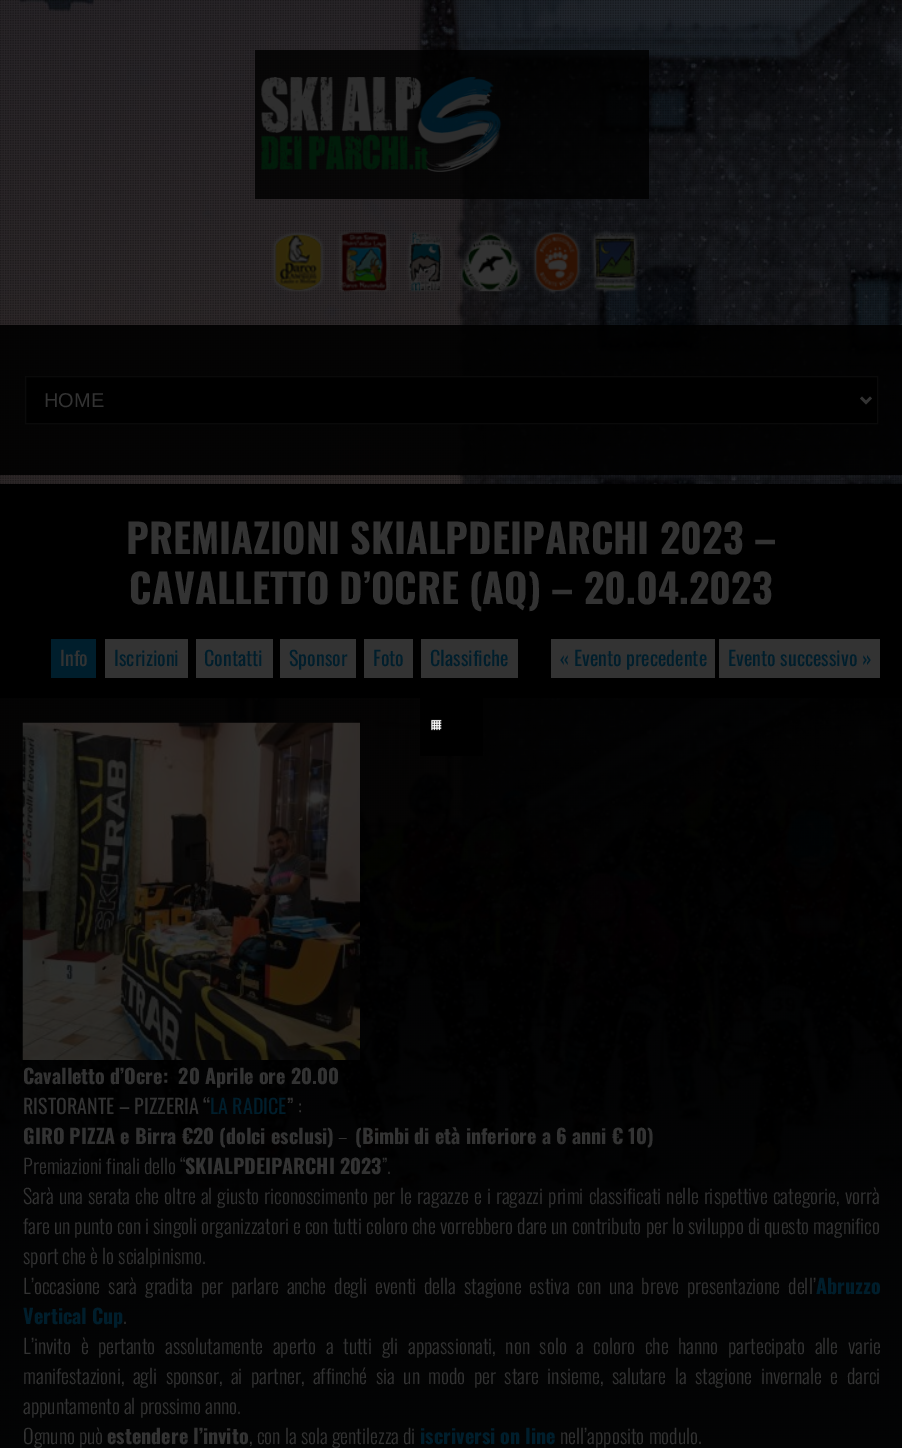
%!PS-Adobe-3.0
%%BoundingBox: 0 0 902 1448
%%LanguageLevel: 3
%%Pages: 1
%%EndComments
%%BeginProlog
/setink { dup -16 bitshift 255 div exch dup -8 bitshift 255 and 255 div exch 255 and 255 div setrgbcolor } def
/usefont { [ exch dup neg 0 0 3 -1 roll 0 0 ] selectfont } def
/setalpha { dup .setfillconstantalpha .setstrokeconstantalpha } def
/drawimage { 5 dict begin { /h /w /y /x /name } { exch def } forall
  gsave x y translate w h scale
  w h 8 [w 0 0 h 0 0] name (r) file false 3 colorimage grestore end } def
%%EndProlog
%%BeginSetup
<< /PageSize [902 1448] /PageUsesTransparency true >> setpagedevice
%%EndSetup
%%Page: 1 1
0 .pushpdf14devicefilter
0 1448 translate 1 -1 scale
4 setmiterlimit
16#FFFFFF setink
0 0 902 1448 rectfill
(img1.raw) 0 0 902 1448 drawimage
(img2.raw) 0 0 902 1448 drawimage
0.81 setalpha
16#000000 setink
255 50 394 149 rectfill
1 setalpha
(img3.raw) 261 77 241 95 drawimage
(img4.raw) 271 232 368 60 drawimage
0.9 setalpha
0 325 902 150 rectfill
25.5 376.5 moveto 877.5 376.5 lineto 877.5 423.5 lineto 25.5 423.5 lineto closepath fill
1 setalpha
16#0A0A0A setink
25.5 376.5 moveto 877.5 376.5 lineto 877.5 423.5 lineto 25.5 423.5 lineto closepath stroke
16#333333 setink
2.5 setlinewidth
861 397.5 moveto 866 402.5 lineto 871 397.5 lineto stroke
/LiberationSans-Regular 20 usefont
44 407 moveto (HOME) show
16#000000 setink
0 484 902 214 rectfill
/Oswald-Bold 40 usefont
16#333333 setink
126 554 moveto (PREMIAZIONI SKIALPDEIPARCHI 2023 –) show
129 604 moveto (CAVALLETTO D’OCRE \(AQ\) – 20.04.2023) show
16#001E2C setink
51 639 45 39 rectfill
/Oswald-Regular 20 usefont
16#333333 setink
60 666 moveto (Info) show
105 639 83 39 rectfill
16#001E2C setink
114 666 moveto (Iscrizioni) show
16#333333 setink
196 639 77 39 rectfill
16#001E2C setink
204 666 moveto (Contatti) show
16#333333 setink
280 639 76 39 rectfill
16#001E2C setink
289 666 moveto (Sponsor) show
16#333333 setink
364 639 49 39 rectfill
16#001E2C setink
373 666 moveto (Foto) show
16#333333 setink
421 639 97 39 rectfill
16#001E2C setink
430 666 moveto (Classifiche) show
16#333333 setink
551 639 164 39 rectfill
16#001E2C setink
560 666 moveto (« Evento precedente) show
16#333333 setink
719 639 161 39 rectfill
16#001E2C setink
728 666 moveto (Evento successivo ») show
0.9 setalpha
16#000000 setink
0 698 902 750 rectfill
1 setalpha
(img5.raw) 22 722 338 338 drawimage
/Oswald-Bold 20 usefont
16#333333 setink
23 1084 moveto (Cavalletto d’Ocre:  20 Aprile ore 20.00) show
/Oswald-Regular 20 usefont
23 1114 moveto (RISTORANTE – PIZZERIA “) show
16#001E2C setink
210 1114 moveto (LA RADICE) show
16#333333 setink
287 1114 moveto (”) show
/Oswald-Light 20 usefont
298 1114 moveto (:) show
/Oswald-Bold 20 usefont
23 1144 moveto (GIRO PIZZA e Birra €20 \(dolci esclusi\)) show
/Oswald-Light 20 usefont
338 1144 moveto (–) show
/Oswald-Bold 20 usefont
355 1144 moveto (\(Bimbi di età inferiore a 6 anni € 10\)) show
/Oswald-Light 20 usefont
23 1174 moveto (Premiazioni finali dello “) show
/Oswald-Bold 20 usefont
185 1174 moveto (SKIALPDEIPARCHI 2023) show
/Oswald-Light 20 usefont
382 1174 moveto (”.) show
23 1204 moveto 1 0 32 (Sarà una serata che oltre al giusto riconoscimento per le ragazze e i ragazzi primi classificati nelle rispettive categorie, vorrà) widthshow
23 1234 moveto (fare un punto con i singoli organizzatori e con tutti coloro che vorrebbero dare un contributo per lo sviluppo di questo magnifico) show
23 1264 moveto (sport che è lo scialpinismo.) show
23 1294 moveto 3.9 0 32 (L’occasione sarà gradita per parlare anche degli eventi della stagione estiva con una breve presentazione dell’) widthshow
/Oswald-Bold 20 usefont
16#001E2C setink
816 1294 moveto (Abruzzo) show
23 1324 moveto (Vertical Cup) show
/Oswald-Light 20 usefont
16#333333 setink
123 1324 moveto (.) show
23 1354 moveto 5.5 0 32 (L’invito è pertanto assolutamente aperto a tutti gli appassionati, non solo a coloro che hanno partecipato alle varie) widthshow
23 1384 moveto 4.4 0 32 (manifestazioni, agli sponsor, ai partner, affinché sia un modo per stare insieme, salutare la stagione invernale e darci) widthshow
23 1414 moveto (appuntamento al prossimo anno.) show
23 1444 moveto (Ognuno può) show
/Oswald-Bold 20 usefont
107 1444 moveto (estendere l’invito) show
/Oswald-Light 20 usefont
249 1444 moveto (, con la sola gentilezza di) show
/Oswald-Bold 20 usefont
16#001E2C setink
420 1444 moveto (iscriversi on line) show
/Oswald-Light 20 usefont
16#333333 setink
560 1444 moveto (nell’apposito modulo.) show
16#000000 setink
420 698 63 58 rectfill
(img6.raw) 431 719 11 12 drawimage
.poppdf14devicefilter showpage
%%EOF
